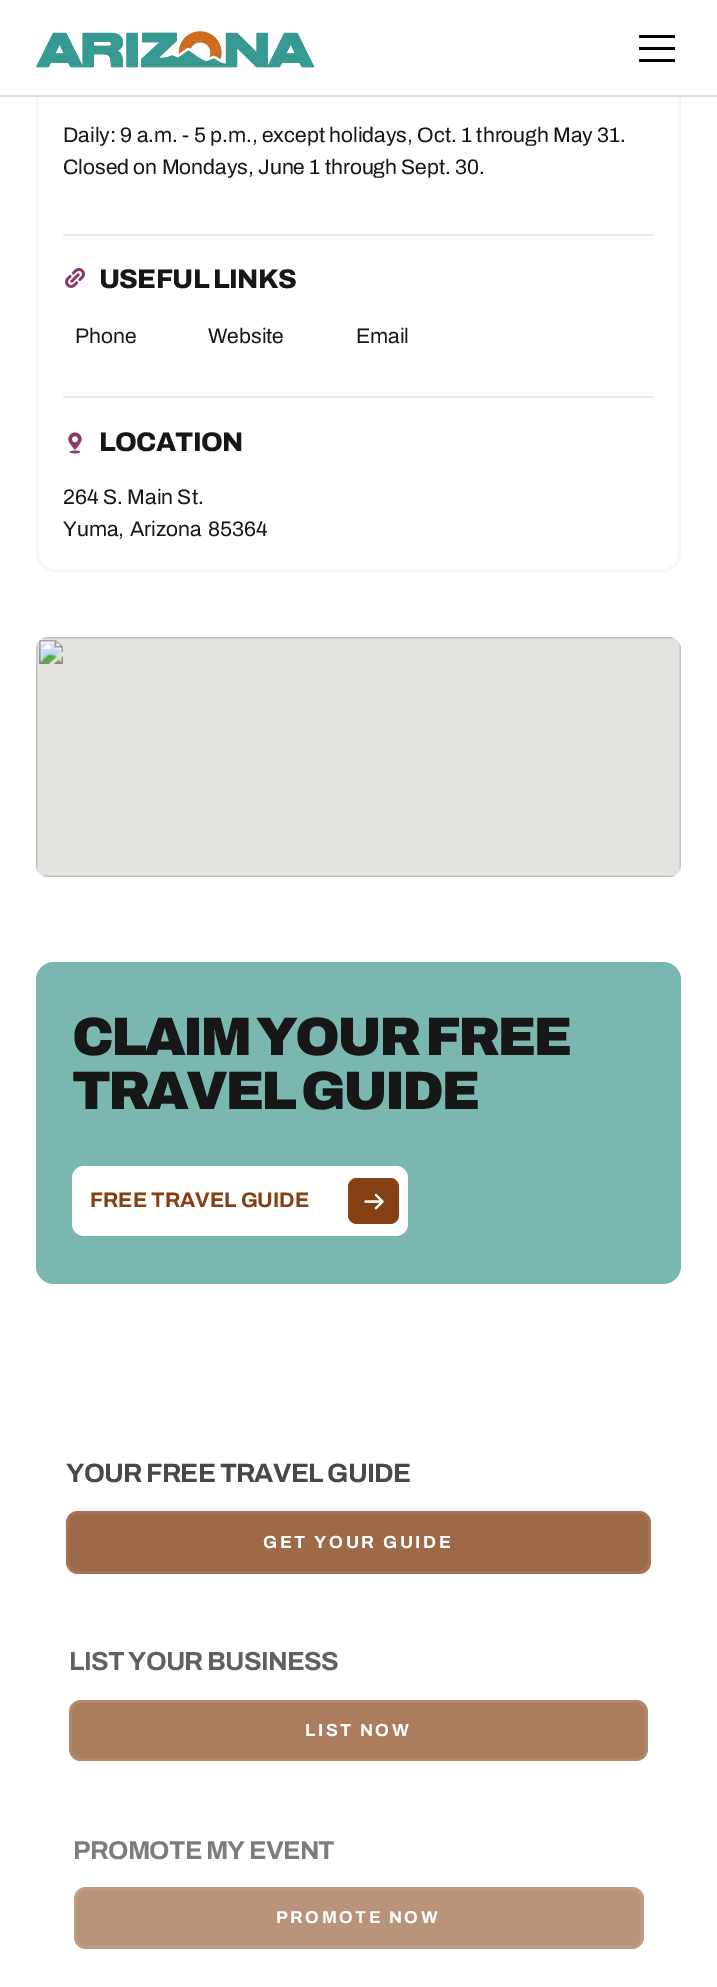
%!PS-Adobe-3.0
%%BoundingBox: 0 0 717 1987
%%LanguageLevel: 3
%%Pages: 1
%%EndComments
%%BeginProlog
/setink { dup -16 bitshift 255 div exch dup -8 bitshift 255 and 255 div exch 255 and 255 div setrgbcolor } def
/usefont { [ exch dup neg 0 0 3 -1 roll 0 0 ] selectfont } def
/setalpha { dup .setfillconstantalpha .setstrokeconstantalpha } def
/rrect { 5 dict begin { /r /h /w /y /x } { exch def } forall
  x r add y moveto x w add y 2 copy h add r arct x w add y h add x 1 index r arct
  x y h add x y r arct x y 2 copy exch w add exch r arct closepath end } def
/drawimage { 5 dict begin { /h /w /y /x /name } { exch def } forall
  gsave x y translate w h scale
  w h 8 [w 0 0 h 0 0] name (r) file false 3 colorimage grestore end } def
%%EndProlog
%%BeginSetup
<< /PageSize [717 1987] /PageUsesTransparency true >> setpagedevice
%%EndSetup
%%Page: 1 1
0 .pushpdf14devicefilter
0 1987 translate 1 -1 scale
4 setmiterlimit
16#FFFFFF setink
0 0 717 1987 rectfill
16#F6F6F6 setink
3 setlinewidth
37.5 30.5 642 540 16.5 rrect stroke
16#FFFFFF setink
36 29 645 67 rectfill
0.12 setalpha
16#000000 setink
0 95 717 2 rectfill
1 setalpha
(img1.raw) 36 31 279 37 drawimage
[
    [639 35 36 3 16#000000]
    [639 47 36 3 16#000000]
    [639 59 36 3 16#000000]
] { aload pop setink rectfill } forall
/Archivo-Regular 21 usefont
16#171717 setink
63 142 moveto (Daily: 9 a.m. - 5 p.m., except holidays, Oct. 1 through May 31.) show
63 174 moveto (Closed on Mondays, June 1 through Sept. 30.) show
16#ECECEC setink
63 234 591 2 rectfill
(img2.raw) 65 268 20 20 drawimage
/Archivo-ExtraBold 27 usefont
16#171717 setink
99 288 moveto -0.75 0 (USEFUL LINKS) ashow
/Archivo-Regular 21 usefont
[
    [(Phone) 75 343]
    [(Website) 208 343]
    [(Email) 356 343]
] { aload pop moveto show } forall
16#ECECEC setink
63 396 591 2 rectfill
(img3.raw) 68 432 14 22 drawimage
/Archivo-ExtraBold 27 usefont
16#171717 setink
99 451 moveto -0.75 0 (LOCATION) ashow
/Archivo-Regular 21 usefont
[
    [(264 S. Main St.) 63 504]
    [(Yuma,) 63 536]
    [(Arizona) 130 536]
    [(85364) 208 536]
] { aload pop moveto show } forall
(img4.raw) 36 637 645 240 drawimage
16#7BB7B1 setink
36 962 645 322 18 rrect fill
/Archivo-Black 54 usefont
16#171717 setink
72 1055 moveto -3 0 (CLAIM YOUR FREE) ashow
72 1109 moveto -3 0 (TRAVEL GUIDE) ashow
16#FFFFFF setink
72 1166 336 70 12 rrect fill
/Archivo-Bold 21 usefont
16#844114 setink
90 1207 moveto (FREE TRAVEL GUIDE) show
348 1178 51 46 9 rrect fill
(img5.raw) 364 1194 20 16 drawimage
(img6.raw) 364 1194 20 16 drawimage
/Archivo-Bold 26.5 usefont
16#484848 setink
66 1482 moveto -0.75 0 (YOUR FREE TRAVEL GUIDE) ashow
16#9E6946 setink
66 1511 585 63 12 rrect fill
0.08 setalpha
16#FFFFFF setink
67.5 1512.5 582 60 10.5 rrect stroke
/Archivo-Bold 17.6 usefont
1 setalpha
263 1548 moveto 2.6 0 (GET YOUR GUIDE) ashow
/Archivo-Bold 26.1 usefont
16#606060 setink
69 1670 moveto -0.75 0 (LIST YOUR BUSINESS) ashow
16#AB7D5E setink
69 1700 579 61 12 rrect fill
0.08 setalpha
16#FFFFFF setink
70.5 1701.5 576 58 10.5 rrect stroke
/Archivo-Bold 17.5 usefont
1 setalpha
305 1736 moveto 2.5 0 (LIST NOW) ashow
/Archivo-Bold 25.75 usefont
16#7C7C7C setink
73 1859 moveto -0.75 0 (PROMOTE MY EVENT) ashow
16#BA947A setink
74 1887 570 62 12 rrect fill
0.08 setalpha
16#FFFFFF setink
75.5 1888.5 567 59 10.5 rrect stroke
/Archivo-Bold 17.25 usefont
1 setalpha
276 1923 moveto 2.5 0 (PROMOTE NOW) ashow
.poppdf14devicefilter showpage
%%EOF
